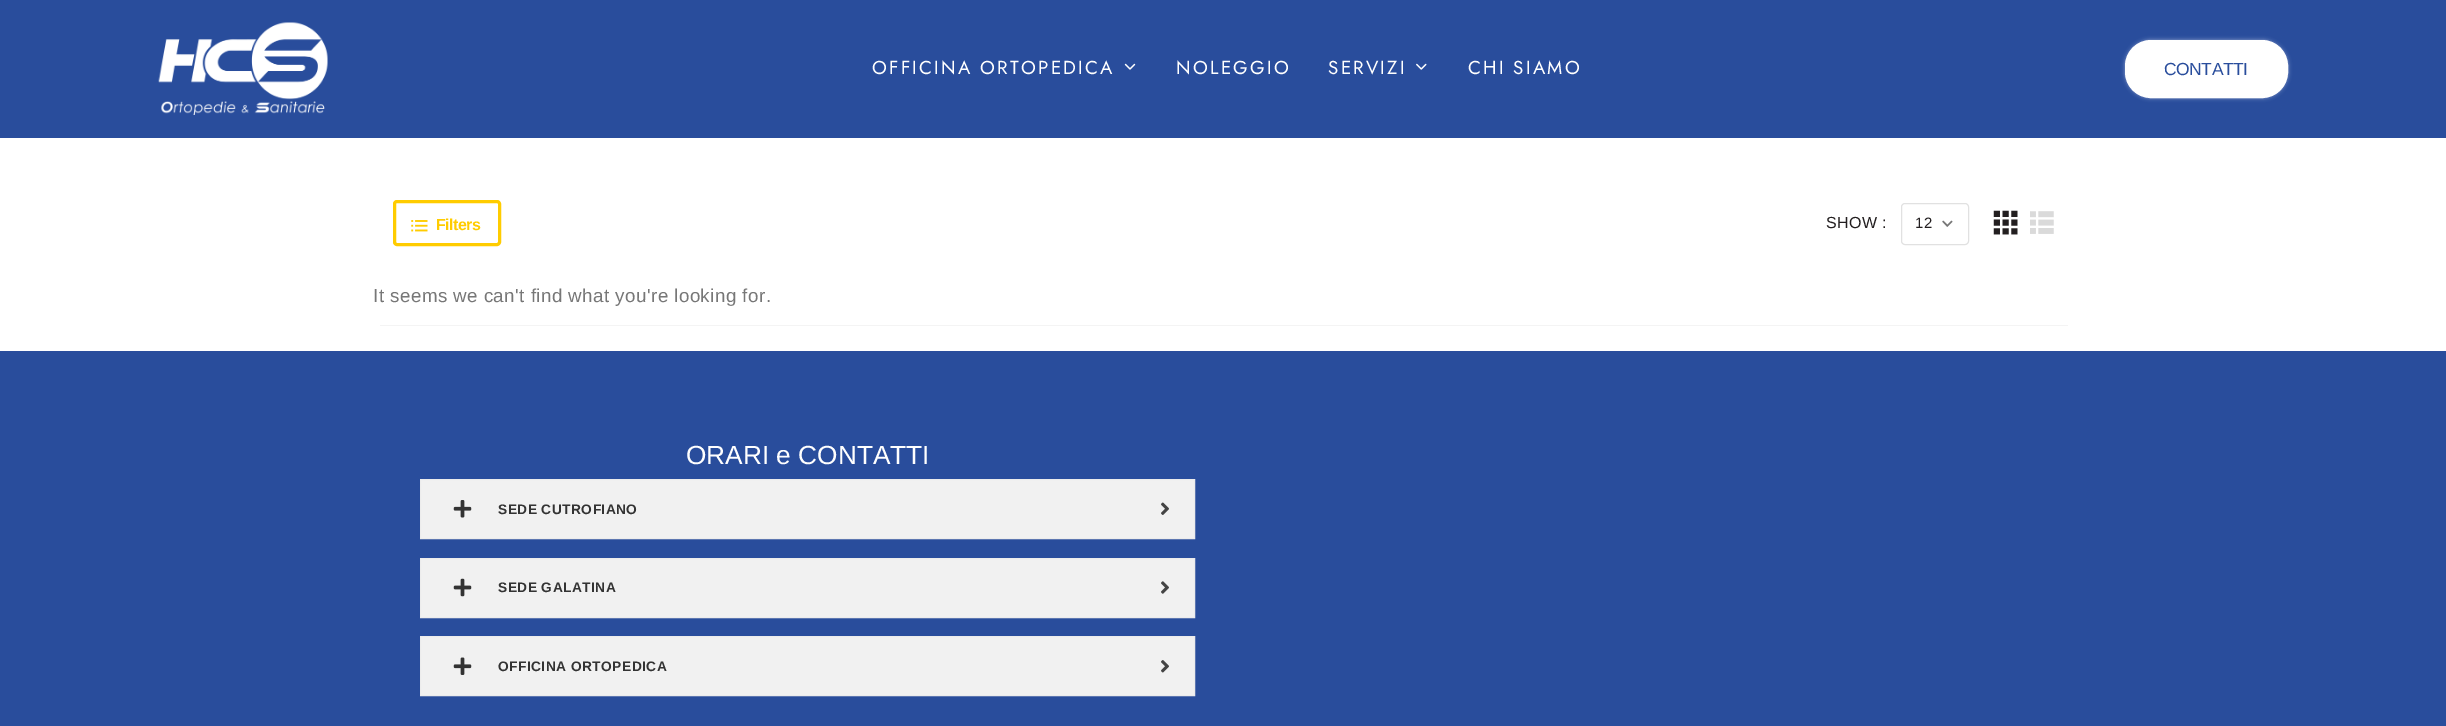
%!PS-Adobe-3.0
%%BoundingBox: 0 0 2446 726
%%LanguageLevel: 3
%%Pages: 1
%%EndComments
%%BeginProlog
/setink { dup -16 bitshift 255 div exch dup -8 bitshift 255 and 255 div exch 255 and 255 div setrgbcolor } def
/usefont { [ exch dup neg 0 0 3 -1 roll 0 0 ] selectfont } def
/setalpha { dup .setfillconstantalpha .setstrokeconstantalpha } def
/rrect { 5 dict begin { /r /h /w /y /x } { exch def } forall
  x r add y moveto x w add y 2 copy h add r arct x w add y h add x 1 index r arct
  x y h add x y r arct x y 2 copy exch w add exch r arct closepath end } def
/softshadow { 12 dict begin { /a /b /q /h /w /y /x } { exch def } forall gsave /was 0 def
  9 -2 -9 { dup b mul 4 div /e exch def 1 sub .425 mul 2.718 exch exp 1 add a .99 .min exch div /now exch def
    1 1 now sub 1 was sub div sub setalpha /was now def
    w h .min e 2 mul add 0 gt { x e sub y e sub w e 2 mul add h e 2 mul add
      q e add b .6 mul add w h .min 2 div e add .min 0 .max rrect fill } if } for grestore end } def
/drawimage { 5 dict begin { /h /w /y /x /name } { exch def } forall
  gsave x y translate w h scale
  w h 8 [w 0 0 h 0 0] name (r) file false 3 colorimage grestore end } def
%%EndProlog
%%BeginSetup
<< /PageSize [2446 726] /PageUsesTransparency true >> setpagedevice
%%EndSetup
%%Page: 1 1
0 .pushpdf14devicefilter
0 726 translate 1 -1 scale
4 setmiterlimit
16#FFFFFF setink
0 0 2446 726 rectfill
16#294D9C setink
0 0 2446 138 rectfill
(img1.raw) 158 22 170 93 drawimage
/Jost-Regular 18.75 usefont
16#FFFFFF setink
872 74 moveto 2.25 0 (OFFICINA ORTOPEDICA) ashow
(img2.raw) 1124 63 12 7 drawimage
1176 74 moveto 2.25 0 (NOLEGGIO) ashow
1328 74 moveto 2.25 0 (SERVIZI) ashow
(img3.raw) 1416 63 11 7 drawimage
1468 74 moveto 2.25 0 (CHI SIAMO) ashow
2125 40 163 58 26 2 0.5 softshadow
2126.5 41.5 160 55 24.5 rrect gsave fill grestore
3 setlinewidth
stroke
/LiberationSans-Regular 17.5 usefont
16#294D9C setink
2164 75 moveto -0.5 0 (CONTATTI) ashow
16#FFCC00 setink
394.5 201.5 105 43 2.5 rrect stroke
(img4.raw) 411 220 17 12 drawimage
/LiberationSans-Bold 16 usefont
436 230 moveto -0.5 0 (Filters) ashow
/LiberationSans-Regular 16 usefont
16#231F20 setink
1826 228 moveto 0.45 0 (SHOW :) ashow
(img5.raw) 1942 220 11 7 drawimage
16#E1E1E1 setink
1 setlinewidth
1901.5 203.5 67 41 3.5 rrect stroke
/LiberationSans-Regular 15 usefont
16#231F20 setink
1915 228 moveto 0.45 0 (12) ashow
(img6.raw) 1993 210 25 25 drawimage
(img7.raw) 2030 211 24 23 drawimage
/LiberationSans-Regular 18.75 usefont
16#777777 setink
373 302 moveto 0.45 0 (It seems we can't find what you're looking for.) ashow
16#F4F4F4 setink
380 325 1688 1 rectfill
16#294D9C setink
0 351 2446 375 rectfill
/LiberationSans-Regular 26.25 usefont
16#FFFFFF setink
686 464 moveto (ORARI e CONTATTI) show
16#F1F1F1 setink
420.5 479.5 moveto 1194.5 479.5 lineto 1194.5 538.5 lineto 420.5 538.5 lineto closepath gsave fill grestore
16#ECECEC setink
stroke
(img8.raw) 453 500 19 18 drawimage
/LiberationSans-Bold 13.75 usefont
16#333333 setink
498 514 moveto 0.45 0 (SEDE CUTROFIANO) ashow
(img9.raw) 1161 502 8 13 drawimage
16#F1F1F1 setink
420.5 558.5 moveto 1194.5 558.5 lineto 1194.5 617.5 lineto 420.5 617.5 lineto closepath gsave fill grestore
16#ECECEC setink
stroke
(img10.raw) 453 578 19 19 drawimage
16#333333 setink
498 592 moveto 0.45 0 (SEDE GALATINA) ashow
(img11.raw) 1161 581 8 13 drawimage
16#F1F1F1 setink
420.5 636.5 moveto 1194.5 636.5 lineto 1194.5 695.5 lineto 420.5 695.5 lineto closepath gsave fill grestore
16#ECECEC setink
stroke
(img12.raw) 453 657 19 18 drawimage
16#333333 setink
498 671 moveto 0.45 0 (OFFICINA ORTOPEDICA) ashow
(img13.raw) 1161 660 8 13 drawimage
.poppdf14devicefilter showpage
%%EOF
